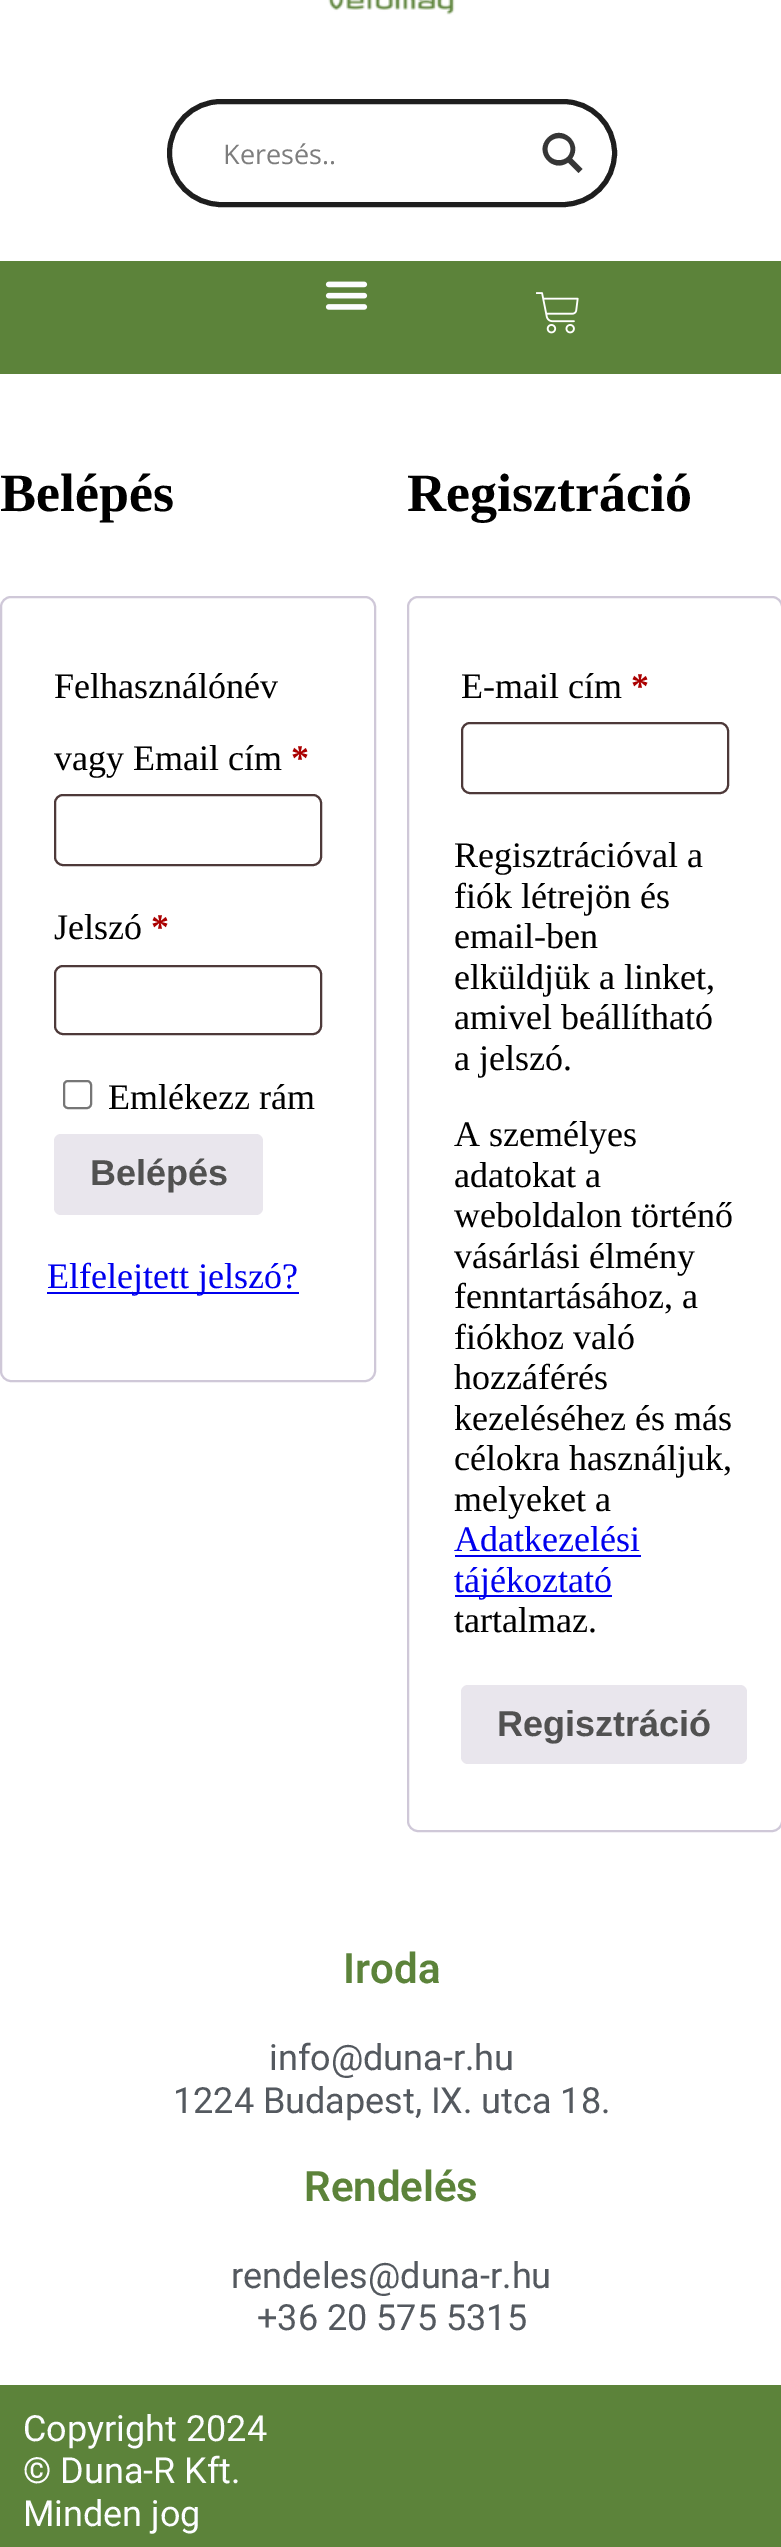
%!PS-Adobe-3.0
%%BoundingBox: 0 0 781 2547
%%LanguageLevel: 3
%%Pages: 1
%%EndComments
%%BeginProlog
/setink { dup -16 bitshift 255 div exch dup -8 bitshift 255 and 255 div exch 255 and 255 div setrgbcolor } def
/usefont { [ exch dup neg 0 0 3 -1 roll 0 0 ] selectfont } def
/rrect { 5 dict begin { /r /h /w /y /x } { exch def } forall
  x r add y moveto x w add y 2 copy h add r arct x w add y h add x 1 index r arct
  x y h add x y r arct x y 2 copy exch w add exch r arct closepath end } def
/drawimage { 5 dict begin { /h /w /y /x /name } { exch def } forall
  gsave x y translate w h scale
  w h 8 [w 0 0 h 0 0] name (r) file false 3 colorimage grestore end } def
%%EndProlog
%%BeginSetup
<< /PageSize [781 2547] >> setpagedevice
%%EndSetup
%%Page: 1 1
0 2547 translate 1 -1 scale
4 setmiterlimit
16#FFFFFF setink
0 0 781 2547 rectfill
(img1.raw) 328 0 127 15 drawimage
16#1E1E1E setink
5 setlinewidth
169.5 101.5 445 103 51.5 rrect stroke
/OpenSans-Regular 27 usefont
16#7D7D7D setink
223 164 moveto (Keresés..) show
16#363636 setink
582.5 169 moveto 572 158.5 lineto 583.5 143 561.5 123.5 547.5 138 curveto 533.5 152 552.5 173.5 568 162.5 curveto 578.5 173 lineto closepath 547.5 149 moveto 547.5 134.5 570.5 134.5 570.5 149 curveto 570.5 164 547.5 164 547.5 149 curveto closepath fill
16#5C833A setink
0 261 781 113 rectfill
(img2.raw) 325 281 43 29 drawimage
(img3.raw) 536 292 43 42 drawimage
/LiberationSerif-Bold 54 usefont
16#000000 setink
0 511 moveto (Belépés) show
16#CFC8D8 setink
2 setlinewidth
1 597 374 784 10 rrect stroke
/LiberationSerif-Regular 36 usefont
16#000000 setink
54 698 moveto (Felhasználónév) show
54 770 moveto (vagy Email cím) show
/LiberationSerif-Bold 36 usefont
16#AA0000 setink
291 770 moveto (*) show
16#4D3939 setink
55 795 266 70 8 rrect stroke
/LiberationSerif-Regular 36 usefont
16#000000 setink
54 939 moveto (Jelszó) show
/LiberationSerif-Bold 36 usefont
16#AA0000 setink
151 939 moveto (*) show
16#4D3939 setink
55 966 266 68 8 rrect stroke
16#767676 setink
64 1081 27 27 4 rrect stroke
/LiberationSerif-Regular 36 usefont
16#000000 setink
108 1109 moveto (Emlékezz rám) show
16#E9E6ED setink
54 1134 209 81 7 rrect fill
/LiberationSans-Bold 36 usefont
16#515151 setink
90 1185 moveto (Belépés) show
16#0000EE setink
47 1292 252 2 rectfill
/LiberationSerif-Regular 36 usefont
47 1288 moveto (Elfelejtett jelszó?) show
/LiberationSerif-Bold 54 usefont
16#000000 setink
407 511 moveto (Regisztráció) show
16#CFC8D8 setink
408 597 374 1234 10 rrect stroke
/LiberationSerif-Regular 36 usefont
16#000000 setink
461 698 moveto (E-mail cím) show
/LiberationSerif-Bold 36 usefont
16#AA0000 setink
631 698 moveto (*) show
16#4D3939 setink
462 723 266 70 8 rrect stroke
/LiberationSerif-Regular 36 usefont
16#000000 setink
[
    [(Regisztrációval a) 454 867]
    [(fiók létrejön és) 454 908]
    [(email-ben) 454 948]
    [(elküldjük a linket,) 454 989]
    [(amivel beállítható) 454 1029]
    [(a jelszó.) 454 1070]
    [(A személyes) 454 1146]
    [(adatokat a) 454 1187]
    [(weboldalon történő) 454 1227]
    [(vásárlási élmény) 454 1268]
    [(fenntartásához, a) 454 1308]
    [(fiókhoz való) 454 1349]
    [(hozzáférés) 454 1389]
    [(kezeléséhez és más) 454 1430]
    [(célokra használjuk,) 454 1470]
    [(melyeket a) 454 1511]
] { aload pop moveto show } forall
16#0000EE setink
454 1551 moveto (Adatkezelési) show
455 1555 186 2 rectfill
455 1595 157 2 rectfill
454 1592 moveto (tájékoztató) show
16#000000 setink
454 1632 moveto (tartalmaz.) show
16#E9E6ED setink
461 1685 286 79 7 rrect fill
/LiberationSans-Bold 36 usefont
16#515151 setink
497 1736 moveto (Regisztráció) show
/Roboto-SemiBold 42 usefont
16#5C833A setink
343 1983 moveto (Iroda) show
/Roboto-Regular 36 usefont
16#54595F setink
269 2070 moveto (info@duna-r.hu) show
173 2113 moveto (1224 Budapest, IX. utca 18.) show
/Roboto-SemiBold 42 usefont
16#5C833A setink
304 2201 moveto (Rendelés) show
/Roboto-Regular 36 usefont
16#54595F setink
231 2288 moveto (rendeles@duna-r.hu) show
257 2330 moveto (+36 20 575 5315) show
16#5C833A setink
0 2385 781 162 rectfill
16#FCFDFF setink
[
    [(Copyright 2024) 23 2441]
    [(© Duna-R Kft.) 23 2483]
    [(Minden jog) 23 2526]
] { aload pop moveto show } forall
showpage
%%EOF
